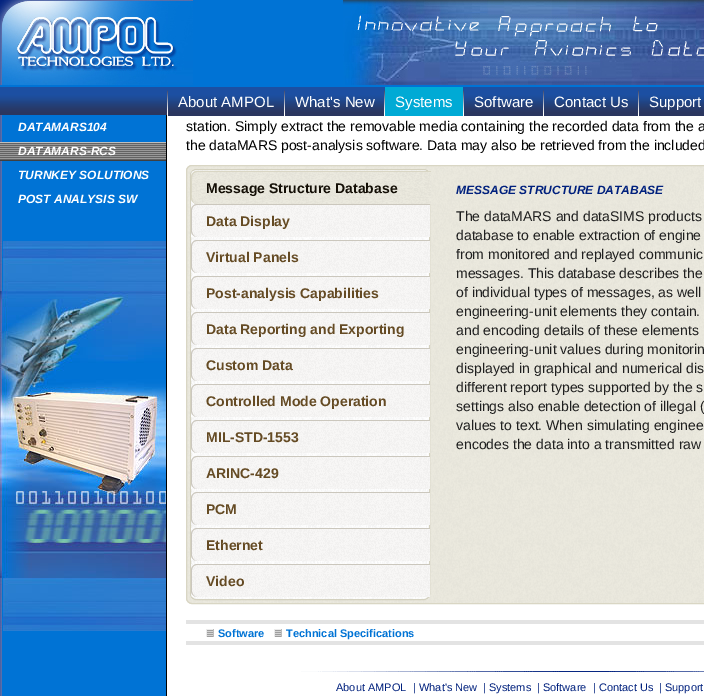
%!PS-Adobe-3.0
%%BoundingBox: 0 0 704 696
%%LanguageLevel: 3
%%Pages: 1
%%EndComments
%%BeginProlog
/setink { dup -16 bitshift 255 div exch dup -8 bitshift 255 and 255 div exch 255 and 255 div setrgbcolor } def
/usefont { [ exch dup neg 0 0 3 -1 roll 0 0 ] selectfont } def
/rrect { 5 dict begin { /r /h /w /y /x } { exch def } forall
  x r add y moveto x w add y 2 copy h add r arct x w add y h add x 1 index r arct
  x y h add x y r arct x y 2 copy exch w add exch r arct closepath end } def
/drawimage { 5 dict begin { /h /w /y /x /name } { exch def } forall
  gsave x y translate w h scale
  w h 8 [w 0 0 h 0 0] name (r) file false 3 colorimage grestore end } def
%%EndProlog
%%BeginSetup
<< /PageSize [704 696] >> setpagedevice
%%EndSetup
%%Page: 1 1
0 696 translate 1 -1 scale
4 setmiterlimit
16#FFFFFF setink
0 0 704 696 rectfill
16#0073D5 setink
0 0 704 87 rectfill
(img1.raw) 0 0 193 85 drawimage
(img2.raw) 343 0 361 85 drawimage
(img3.raw) 0 87 704 29 drawimage
(img4.raw) 167 90 1 26 drawimage
/LiberationSans-Regular 15 usefont
16#FFFFFF setink
178 107 moveto (About AMPOL) show
(img4.raw) 284 90 1 26 drawimage
295 107 moveto (What's New) show
(img4.raw) 384 90 1 26 drawimage
16#00AAD5 setink
385 87 78 29 rectfill
16#FFFFFF setink
395 107 moveto (Systems) show
(img4.raw) 463 90 1 26 drawimage
474 107 moveto (Software) show
(img4.raw) 543 90 1 26 drawimage
554 107 moveto (Contact Us) show
(img4.raw) 638 90 1 26 drawimage
649 107 moveto (Support) show
16#0073D5 setink
2 115 164 581 rectfill
(img5.raw) 0 115 2 581 drawimage
16#000000 setink
166 115 1 581 rectfill
/LiberationSans-BoldItalic 12 usefont
16#FFFFFF setink
18 131 moveto (DATAMARS104) show
(img6.raw) 0 142 166 19 drawimage
[
    [(DATAMARS-RCS) 18 155]
    [(TURNKEY SOLUTIONS) 18 179]
    [(POST ANALYSIS SW) 18 203]
] { aload pop moveto show } forall
(img7.raw) 0 241 166 390 drawimage
(img8.raw) 0 291 166 287 drawimage
/LiberationSans-Regular 14 usefont
16#000000 setink
186 131 moveto (station. Simply extract the removable media containing the recorded data from the a) show
186 150 moveto (the dataMARS post-analysis software. Data may also be retrieved from the included) show
(img9.raw) 186 165 518 439 drawimage
16#D9D6C4 setink
186.5 165.5 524 438 5.5 rrect stroke
(img10.raw) 190 169 239 431 drawimage
16#D4D1BF setink
190.5 169.5 239 430 5.5 rrect stroke
(img11.raw) 191 171 240 33 drawimage
16#D9D6C4 setink
197 171 moveto 431 171 lineto 431 204 lineto 197 204 lineto 194 204 191 201 191 198 curveto 191 177 lineto 191 174 194 171 197 171 curveto closepath 197 172 moveto 431 172 lineto 431 204 lineto 197 204 lineto 190 204 192 191 192 188 curveto 192 183 190 172 197 172 curveto closepath eofill
/LiberationSans-Bold 14 usefont
16#140F06 setink
206 193 moveto (Message Structure Database) show
(img12.raw) 191 204 239 33 drawimage
16#CBC7BD setink
197 204 moveto 430 204 lineto 430 237 lineto 197 237 lineto 194 237 191 234 191 231 curveto 191 210 lineto 191 207 194 204 197 204 curveto closepath 197 205 moveto 430 205 lineto 430 237 lineto 197 237 lineto 194 237 192 234 192 231 curveto 192 210 lineto 192 207 194 205 197 205 curveto closepath eofill
16#654B24 setink
206 226 moveto (Data Display) show
(img13.raw) 191 240 239 33 drawimage
16#CBC7BD setink
197 240 moveto 430 240 lineto 430 273 lineto 197 273 lineto 194 273 191 270 191 267 curveto 191 246 lineto 191 243 194 240 197 240 curveto closepath 197 241 moveto 430 241 lineto 430 273 lineto 197 273 lineto 194 273 192 270 192 267 curveto 192 246 lineto 192 243 194 241 197 241 curveto closepath eofill
16#654B24 setink
206 262 moveto (Virtual Panels) show
(img14.raw) 191 276 239 33 drawimage
16#CBC7BD setink
197 276 moveto 430 276 lineto 430 309 lineto 197 309 lineto 194 309 191 306 191 303 curveto 191 282 lineto 191 279 194 276 197 276 curveto closepath 197 277 moveto 430 277 lineto 430 309 lineto 197 309 lineto 194 309 192 306 192 303 curveto 192 282 lineto 192 279 194 277 197 277 curveto closepath eofill
16#654B24 setink
206 298 moveto (Post-analysis Capabilities) show
(img15.raw) 191 312 239 33 drawimage
16#CBC7BD setink
197 312 moveto 430 312 lineto 430 345 lineto 197 345 lineto 194 345 191 342 191 339 curveto 191 318 lineto 191 315 194 312 197 312 curveto closepath 197 313 moveto 430 313 lineto 430 345 lineto 197 345 lineto 194 345 192 342 192 339 curveto 192 318 lineto 192 315 194 313 197 313 curveto closepath eofill
16#654B24 setink
206 334 moveto (Data Reporting and Exporting) show
(img16.raw) 191 348 239 33 drawimage
16#CBC7BD setink
197 348 moveto 430 348 lineto 430 381 lineto 197 381 lineto 194 381 191 378 191 375 curveto 191 354 lineto 191 351 194 348 197 348 curveto closepath 197 349 moveto 430 349 lineto 430 381 lineto 197 381 lineto 194 381 192 378 192 375 curveto 192 354 lineto 192 351 194 349 197 349 curveto closepath eofill
16#654B24 setink
206 370 moveto (Custom Data) show
(img12.raw) 191 384 239 33 drawimage
16#CBC7BD setink
197 384 moveto 430 384 lineto 430 417 lineto 197 417 lineto 194 417 191 414 191 411 curveto 191 390 lineto 191 387 194 384 197 384 curveto closepath 197 385 moveto 430 385 lineto 430 417 lineto 197 417 lineto 194 417 192 414 192 411 curveto 192 390 lineto 192 387 194 385 197 385 curveto closepath eofill
16#654B24 setink
206 406 moveto (Controlled Mode Operation) show
(img13.raw) 191 420 239 33 drawimage
16#CBC7BD setink
197 420 moveto 430 420 lineto 430 453 lineto 197 453 lineto 194 453 191 450 191 447 curveto 191 426 lineto 191 423 194 420 197 420 curveto closepath 197 421 moveto 430 421 lineto 430 453 lineto 197 453 lineto 194 453 192 450 192 447 curveto 192 426 lineto 192 423 194 421 197 421 curveto closepath eofill
16#654B24 setink
206 442 moveto (MIL-STD-1553) show
(img14.raw) 191 456 239 33 drawimage
16#CBC7BD setink
197 456 moveto 430 456 lineto 430 489 lineto 197 489 lineto 194 489 191 486 191 483 curveto 191 462 lineto 191 459 194 456 197 456 curveto closepath 197 457 moveto 430 457 lineto 430 489 lineto 197 489 lineto 194 489 192 486 192 483 curveto 192 462 lineto 192 459 194 457 197 457 curveto closepath eofill
16#654B24 setink
206 478 moveto (ARINC-429) show
(img15.raw) 191 492 239 33 drawimage
16#CBC7BD setink
197 492 moveto 430 492 lineto 430 525 lineto 197 525 lineto 194 525 191 522 191 519 curveto 191 498 lineto 191 495 194 492 197 492 curveto closepath 197 493 moveto 430 493 lineto 430 525 lineto 197 525 lineto 194 525 192 522 192 519 curveto 192 498 lineto 192 495 194 493 197 493 curveto closepath eofill
16#654B24 setink
206 514 moveto (PCM) show
(img16.raw) 191 528 239 33 drawimage
16#CBC7BD setink
197 528 moveto 430 528 lineto 430 561 lineto 197 561 lineto 194 561 191 558 191 555 curveto 191 534 lineto 191 531 194 528 197 528 curveto closepath 197 529 moveto 430 529 lineto 430 561 lineto 197 561 lineto 194 561 192 558 192 555 curveto 192 534 lineto 192 531 194 529 197 529 curveto closepath eofill
16#654B24 setink
206 550 moveto (Ethernet) show
(img17.raw) 191 564 239 33 drawimage
16#CBC7BD setink
197 564 moveto 430 564 lineto 430 597 lineto 197 597 lineto 194 597 191 594 191 591 curveto 191 570 lineto 191 567 194 564 197 564 curveto closepath 197 565 moveto 430 565 lineto 430 597 lineto 197 597 lineto 194 597 192 594 192 591 curveto 192 570 lineto 192 567 194 565 197 565 curveto closepath eofill
16#654B24 setink
206 586 moveto (Video) show
/LiberationSans-BoldItalic 12 usefont
16#00207D setink
456 194 moveto (MESSAGE STRUCTURE DATABASE) show
/LiberationSans-Regular 14 usefont
16#1F1F1F setink
[
    [(The dataMARS and dataSIMS products) 456 221]
    [(database to enable extraction of engine) 456 240]
    [(from monitored and replayed communic) 456 259]
    [(messages. This database describes the) 456 278]
    [(of individual types of messages, as well) 456 297]
    [(engineering-unit elements they contain.) 456 316]
    [(and encoding details of these elements) 456 335]
    [(engineering-unit values during monitorin) 456 354]
    [(displayed in graphical and numerical dis) 456 373]
    [(different report types supported by the s) 456 392]
    [(settings also enable detection of illegal \() 456 411]
    [(values to text. When simulating enginee) 456 430]
    [(encodes the data into a transmitted raw) 456 449]
] { aload pop moveto show } forall
16#E3E3E3 setink
186 620 518 4 rectfill
186 641 518 4 rectfill
(img18.raw) 206 629 8 8 drawimage
/LiberationSans-Bold 11 usefont
16#0073D5 setink
218 637 moveto (Software) show
(img18.raw) 274 629 8 8 drawimage
286 637 moveto (Technical Specifications) show
(img19.raw) 301 671 403 1 drawimage
/LiberationSans-Regular 11 usefont
16#00207D setink
[
    [(About AMPOL) 336 691]
    [(| What's New) 413 691]
    [(| Systems) 483 691]
    [(| Software) 537 691]
    [(| Contact Us) 593 691]
    [(| Support) 659 691]
] { aload pop moveto show } forall
showpage
%%EOF
